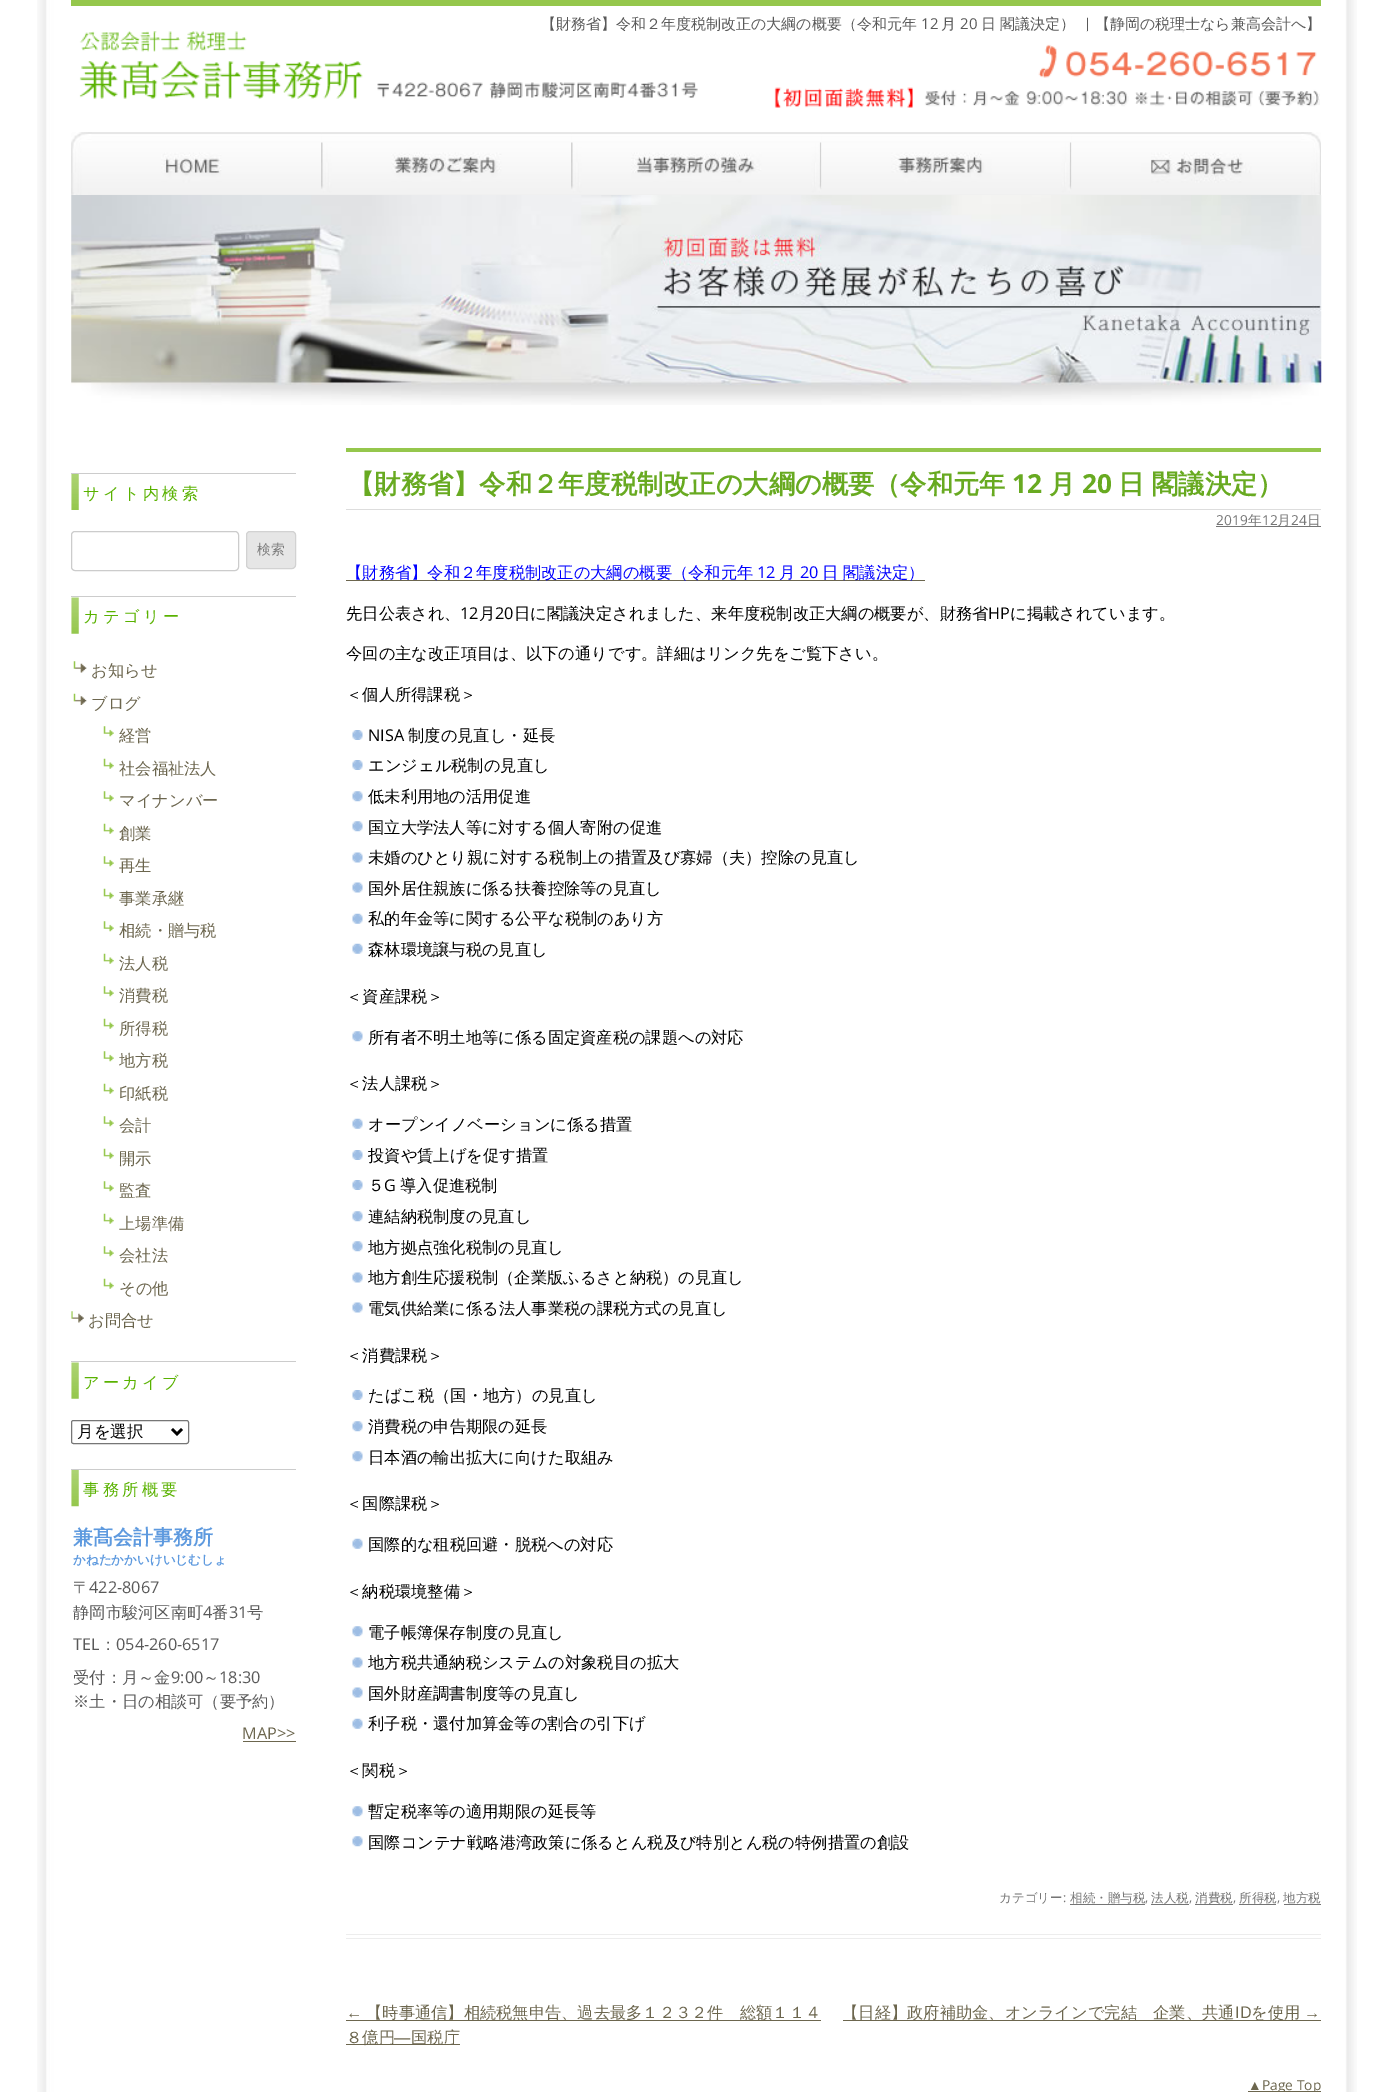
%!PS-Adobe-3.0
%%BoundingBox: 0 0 1391 2092
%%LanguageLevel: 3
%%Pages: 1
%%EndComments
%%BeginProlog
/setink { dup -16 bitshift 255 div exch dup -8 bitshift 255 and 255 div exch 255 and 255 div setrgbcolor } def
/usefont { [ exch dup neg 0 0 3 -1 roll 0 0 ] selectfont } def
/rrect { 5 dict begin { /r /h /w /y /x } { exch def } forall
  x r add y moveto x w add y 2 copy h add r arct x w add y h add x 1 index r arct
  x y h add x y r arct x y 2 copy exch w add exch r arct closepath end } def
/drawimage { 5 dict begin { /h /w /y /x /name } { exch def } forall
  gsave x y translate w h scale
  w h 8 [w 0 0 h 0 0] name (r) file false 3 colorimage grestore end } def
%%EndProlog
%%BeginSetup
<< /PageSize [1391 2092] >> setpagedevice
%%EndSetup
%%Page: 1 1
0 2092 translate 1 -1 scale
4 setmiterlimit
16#FFFFFF setink
0 0 1391 2092 rectfill
(img1.raw) 37 0 1320 2092 drawimage
16#95C74C setink
71 0 1250 6 rectfill
/WenQuanYiZenHei-Medium 15 usefont
16#595959 setink
541 29 moveto (【財務省】令和２年度税制改正の大綱の概要（令和元年) show
/OpenSans-Regular 15 usefont
921 29 moveto (12) show
/WenQuanYiZenHei-Medium 15 usefont
941 29 moveto (月) show
/OpenSans-Regular 15 usefont
960 29 moveto (20) show
/WenQuanYiZenHei-Medium 15 usefont
981 29 moveto (日 閣議決定） ｜【静岡の税理士なら兼高会計へ】) show
(img2.raw) 79 31 1241 77 drawimage
(img3.raw) 71 132 1250 63 drawimage
(img4.raw) 71 132 251 63 drawimage
(img5.raw) 321 132 251 57 drawimage
(img6.raw) 571 132 251 57 drawimage
(img7.raw) 821 132 251 56 drawimage
(img8.raw) 1071 132 241 56 drawimage
(img9.raw) 71 195 1251 210 drawimage
(img10.raw) 71 474 8 36 drawimage
16#CCCCCC setink
71 473 225 1 rectfill
/WenQuanYiZenHei-Medium 16.25 usefont
16#59B200 setink
83 499 moveto 3.25 0 (サイト内検索) ashow
16#CCCCCC setink
71.5 531.5 167 39 3.5 rrect stroke
16#E6E6E6 setink
246.5 531.5 49 37 3.5 rrect gsave fill grestore
16#D2D2D2 setink
stroke
/WenQuanYiZenHei-Medium 13.75 usefont
16#7C7C7C setink
257 554 moveto (検索) show
(img11.raw) 71 597 8 37 drawimage
16#CCCCCC setink
71 596 225 1 rectfill
/WenQuanYiZenHei-Medium 16.25 usefont
16#59B200 setink
83 622 moveto 3.25 0 (カテゴリー) ashow
(img12.raw) 73 661 14 12 drawimage
16#6C664E setink
91 676 moveto (お知らせ) show
(img13.raw) 73 693 14 12 drawimage
91 709 moveto (ブログ) show
(img14.raw) 103 726 11 11 drawimage
119 741 moveto (経営) show
(img15.raw) 103 758 11 11 drawimage
119 774 moveto (社会福祉法人) show
(img14.raw) 103 791 11 11 drawimage
119 806 moveto (マイナンバー) show
(img15.raw) 103 823 11 11 drawimage
119 839 moveto (創業) show
(img14.raw) 103 856 11 11 drawimage
119 871 moveto (再生) show
(img15.raw) 103 888 11 11 drawimage
119 904 moveto (事業承継) show
(img14.raw) 103 921 11 11 drawimage
119 936 moveto (相続・贈与税) show
(img15.raw) 103 953 11 11 drawimage
119 969 moveto (法人税) show
(img14.raw) 103 986 11 11 drawimage
119 1001 moveto (消費税) show
(img15.raw) 103 1018 11 11 drawimage
119 1034 moveto (所得税) show
(img14.raw) 103 1051 11 11 drawimage
119 1066 moveto (地方税) show
(img15.raw) 103 1083 11 11 drawimage
119 1099 moveto (印紙税) show
(img14.raw) 103 1116 11 11 drawimage
119 1131 moveto (会計) show
(img15.raw) 103 1148 11 11 drawimage
119 1164 moveto (開示) show
(img14.raw) 103 1181 11 11 drawimage
119 1196 moveto (監査) show
(img15.raw) 103 1213 11 11 drawimage
119 1229 moveto (上場準備) show
(img14.raw) 103 1246 11 11 drawimage
119 1261 moveto (会社法) show
(img15.raw) 103 1278 11 11 drawimage
119 1294 moveto (その他) show
(img16.raw) 71 1311 13 12 drawimage
88 1326 moveto (お問合せ) show
(img11.raw) 71 1362 8 37 drawimage
16#CCCCCC setink
71 1361 225 1 rectfill
16#59B200 setink
83 1388 moveto 3.25 0 (アーカイブ) ashow
16#767676 setink
71.5 1420.5 117 23 2 rrect stroke
16#000000 setink
2.5 setlinewidth
172 1429 moveto 177 1434 lineto 182 1429 lineto stroke
/WenQuanYiZenHei-Medium 16.5 usefont
77 1437 moveto (月を選択) show
(img17.raw) 71 1470 8 37 drawimage
16#CCCCCC setink
71 1469 225 1 rectfill
/WenQuanYiZenHei-Medium 16.25 usefont
16#59B200 setink
83 1495 moveto 3.25 0 (事務所概要) ashow
/WenQuanYiZenHei-Bold 20 usefont
16#5E9ADF setink
73 1544 moveto (兼髙会計事務所) show
/WenQuanYiZenHei-Bold 12.5 usefont
73 1564 moveto (かねたかかいけいじむしょ) show
/WenQuanYiZenHei-Medium 16.25 usefont
16#595959 setink
73 1593 moveto (〒) show
/OpenSans-Regular 16.25 usefont
89 1593 moveto (422-8067) show
/WenQuanYiZenHei-Medium 16.25 usefont
73 1618 moveto (静岡市駿河区南町) show
/OpenSans-Regular 16.25 usefont
203 1618 moveto (4) show
/WenQuanYiZenHei-Medium 16.25 usefont
212 1618 moveto (番) show
/OpenSans-Regular 16.25 usefont
229 1618 moveto (31) show
/WenQuanYiZenHei-Medium 16.25 usefont
247 1618 moveto (号) show
/OpenSans-Regular 16.25 usefont
73 1650 moveto (TEL) show
/WenQuanYiZenHei-Medium 16.25 usefont
100 1650 moveto (：) show
/OpenSans-Regular 16.25 usefont
116 1650 moveto (054-260-6517) show
/WenQuanYiZenHei-Medium 16.25 usefont
73 1683 moveto (受付：月～金) show
/OpenSans-Regular 16.25 usefont
171 1683 moveto (9:00) show
/WenQuanYiZenHei-Medium 16.25 usefont
203 1683 moveto (～) show
/OpenSans-Regular 16.25 usefont
219 1683 moveto (18:30) show
/WenQuanYiZenHei-Medium 16.25 usefont
73 1707 moveto (※土・日の相談可（要予約）) show
/OpenSans-Regular 16.25 usefont
16#6C664E setink
242 1739 moveto (MAP>>) show
[
    [243 1741 53 1 16#6C664E]
    [346 1934 975 1 16#EDEDED]
    [346 1938 975 1 16#EDEDED]
    [346 448 975 4 16#95C74C]
    [346 509 975 1 16#DDDDDD]
] { aload pop setink rectfill } forall
/WenQuanYiZenHei-Bold 26.25 usefont
16#68AA21 setink
348 493 moveto (【財務省】令和２年度税制改正の大綱の概要（令和元年) show
/OpenSans-Bold 26.25 usefont
1012 493 moveto (12) show
/WenQuanYiZenHei-Bold 26.25 usefont
1049 493 moveto (月) show
/OpenSans-Bold 26.25 usefont
1082 493 moveto (20) show
/WenQuanYiZenHei-Bold 26.25 usefont
1118 493 moveto (日 閣議決定）) show
/OpenSans-Regular 13.75 usefont
16#757575 setink
1216 525 moveto (2019) show
1216 526 105 1 rectfill
/WenQuanYiZenHei-Medium 13.75 usefont
1248 525 moveto (年) show
/OpenSans-Regular 13.75 usefont
1262 525 moveto (12) show
/WenQuanYiZenHei-Medium 13.75 usefont
1277 525 moveto (月) show
/OpenSans-Regular 13.75 usefont
1291 525 moveto (24) show
/WenQuanYiZenHei-Medium 13.75 usefont
1307 525 moveto (日) show
16#6C664E setink
346 580 579 1 rectfill
/WenQuanYiZenHei-Medium 16.25 usefont
16#0000FF setink
346 578 moveto (【財務省】令和２年度税制改正の大綱の概要（令和元年) show
/OpenSans-Regular 16.25 usefont
757 578 moveto (12) show
/WenQuanYiZenHei-Medium 16.25 usefont
779 578 moveto (月) show
/OpenSans-Regular 16.25 usefont
800 578 moveto (20) show
/WenQuanYiZenHei-Medium 16.25 usefont
822 578 moveto (日 閣議決定）) show
16#000000 setink
346 619 moveto (先日公表され、) show
/OpenSans-Regular 16.25 usefont
460 619 moveto (12) show
/WenQuanYiZenHei-Medium 16.25 usefont
479 619 moveto (月) show
/OpenSans-Regular 16.25 usefont
495 619 moveto (20) show
/WenQuanYiZenHei-Medium 16.25 usefont
514 619 moveto (日に閣議決定されました、来年度税制改正大綱の概要が、財務省) show
/OpenSans-Regular 16.25 usefont
988 619 moveto (HP) show
/WenQuanYiZenHei-Medium 16.25 usefont
[
    [(に掲載されています。) 1010 619]
    [(今回の主な改正項目は、以下の通りです。詳細はリンク先をご覧下さい。) 346 659]
    [(＜個人所得課税＞) 346 700]
] { aload pop moveto show } forall
(img18.raw) 352 730 11 10 drawimage
/OpenSans-Regular 16.25 usefont
368 741 moveto (NISA) show
/WenQuanYiZenHei-Medium 16.25 usefont
408 741 moveto (制度の見直し・延長) show
(img18.raw) 352 760 11 10 drawimage
368 771 moveto (エンジェル税制の見直し) show
(img19.raw) 352 791 11 11 drawimage
368 802 moveto (低未利用地の活用促進) show
(img19.raw) 352 821 11 11 drawimage
368 833 moveto (国立大学法人等に対する個人寄附の促進) show
(img20.raw) 352 852 11 11 drawimage
368 863 moveto (未婚のひとり親に対する税制上の措置及び寡婦（夫）控除の見直し) show
(img20.raw) 352 882 11 11 drawimage
368 894 moveto (国外居住親族に係る扶養控除等の見直し) show
(img21.raw) 352 913 11 11 drawimage
368 924 moveto (私的年金等に関する公平な税制のあり方) show
(img21.raw) 352 943 11 11 drawimage
368 955 moveto (森林環境譲与税の見直し) show
346 1002 moveto (＜資産課税＞) show
(img19.raw) 352 1031 11 11 drawimage
368 1043 moveto (所有者不明土地等に係る固定資産税の課題への対応) show
346 1089 moveto (＜法人課税＞) show
(img21.raw) 352 1118 11 11 drawimage
368 1130 moveto (オープンイノベーションに係る措置) show
(img18.raw) 352 1150 11 10 drawimage
368 1161 moveto (投資や賃上げを促す措置) show
(img18.raw) 352 1180 11 10 drawimage
368 1191 moveto (５) show
/OpenSans-Regular 16.25 usefont
384 1191 moveto (G) show
/WenQuanYiZenHei-Medium 16.25 usefont
400 1191 moveto (導入促進税制) show
(img19.raw) 352 1211 11 11 drawimage
368 1222 moveto (連結納税制度の見直し) show
(img19.raw) 352 1241 11 11 drawimage
368 1253 moveto (地方拠点強化税制の見直し) show
(img20.raw) 352 1272 11 11 drawimage
368 1283 moveto (地方創生応援税制（企業版ふるさと納税）の見直し) show
(img20.raw) 352 1302 11 11 drawimage
368 1314 moveto (電気供給業に係る法人事業税の課税方式の見直し) show
346 1361 moveto (＜消費課税＞) show
(img18.raw) 352 1390 11 10 drawimage
368 1401 moveto (たばこ税（国・地方）の見直し) show
(img19.raw) 352 1421 11 11 drawimage
368 1432 moveto (消費税の申告期限の延長) show
(img19.raw) 352 1451 11 11 drawimage
368 1463 moveto (日本酒の輸出拡大に向けた取組み) show
346 1509 moveto (＜国際課税＞) show
(img21.raw) 352 1538 11 11 drawimage
368 1550 moveto (国際的な租税回避・脱税への対応) show
346 1597 moveto (＜納税環境整備＞) show
(img19.raw) 352 1626 11 11 drawimage
368 1638 moveto (電子帳簿保存制度の見直し) show
(img20.raw) 352 1657 11 11 drawimage
368 1668 moveto (地方税共通納税システムの対象税目の拡大) show
(img20.raw) 352 1687 11 11 drawimage
368 1699 moveto (国外財産調書制度等の見直し) show
(img21.raw) 352 1718 11 11 drawimage
368 1729 moveto (利子税・還付加算金等の割合の引下げ) show
346 1776 moveto (＜関税＞) show
(img19.raw) 352 1806 11 11 drawimage
368 1817 moveto (暫定税率等の適用期限の延長等) show
(img19.raw) 352 1836 11 11 drawimage
368 1848 moveto (国際コンテナ戦略港湾政策に係るとん税及び特別とん税の特例措置の創設) show
/WenQuanYiZenHei-Medium 12.5 usefont
16#757575 setink
999 1902 moveto (カテゴリー) show
/OpenSans-Regular 12.5 usefont
1063 1902 moveto (:) show
/WenQuanYiZenHei-Medium 12.5 usefont
1070 1902 moveto (相続・贈与税) show
1070 1904 75 1 rectfill
/OpenSans-Regular 12.5 usefont
1145 1902 moveto (,) show
/WenQuanYiZenHei-Medium 12.5 usefont
1151 1902 moveto (法人税) show
1151 1904 38 1 rectfill
/OpenSans-Regular 12.5 usefont
1189 1902 moveto (,) show
/WenQuanYiZenHei-Medium 12.5 usefont
1195 1902 moveto (消費税) show
1195 1904 38 1 rectfill
/OpenSans-Regular 12.5 usefont
1233 1902 moveto (,) show
/WenQuanYiZenHei-Medium 12.5 usefont
1239 1902 moveto (所得税) show
1239 1904 37 1 rectfill
/OpenSans-Regular 12.5 usefont
1277 1902 moveto (,) show
/WenQuanYiZenHei-Medium 12.5 usefont
1283 1902 moveto (地方税) show
1284 1904 37 1 rectfill
/LiberationSans-Regular 16.25 usefont
16#6C664E setink
346 2018 moveto (←) show
346 2020 475 1 rectfill
/WenQuanYiZenHei-Medium 16.25 usefont
366 2018 moveto (【時事通信】相続税無申告、過去最多１２３２件　総額１１４) show
346 2044 114 1 rectfill
346 2043 moveto (８億円) show
/LiberationSans-Regular 16.25 usefont
394 2043 moveto (―) show
/WenQuanYiZenHei-Medium 16.25 usefont
411 2043 moveto (国税庁) show
843 2020 478 1 rectfill
842 2018 moveto (【日経】政府補助金、オンラインで完結　企業、共通) show
/OpenSans-Regular 16.25 usefont
1235 2018 moveto (ID) show
/WenQuanYiZenHei-Medium 16.25 usefont
1251 2018 moveto (を使用) show
/LiberationSans-Regular 16.25 usefont
1304 2018 moveto (→) show
/LiberationSans-Regular 13.75 usefont
1248 2090 moveto (▲) show
1248 2091 73 1 rectfill
/OpenSans-Regular 13.75 usefont
1262 2090 moveto (Page Top) show
showpage
%%EOF
